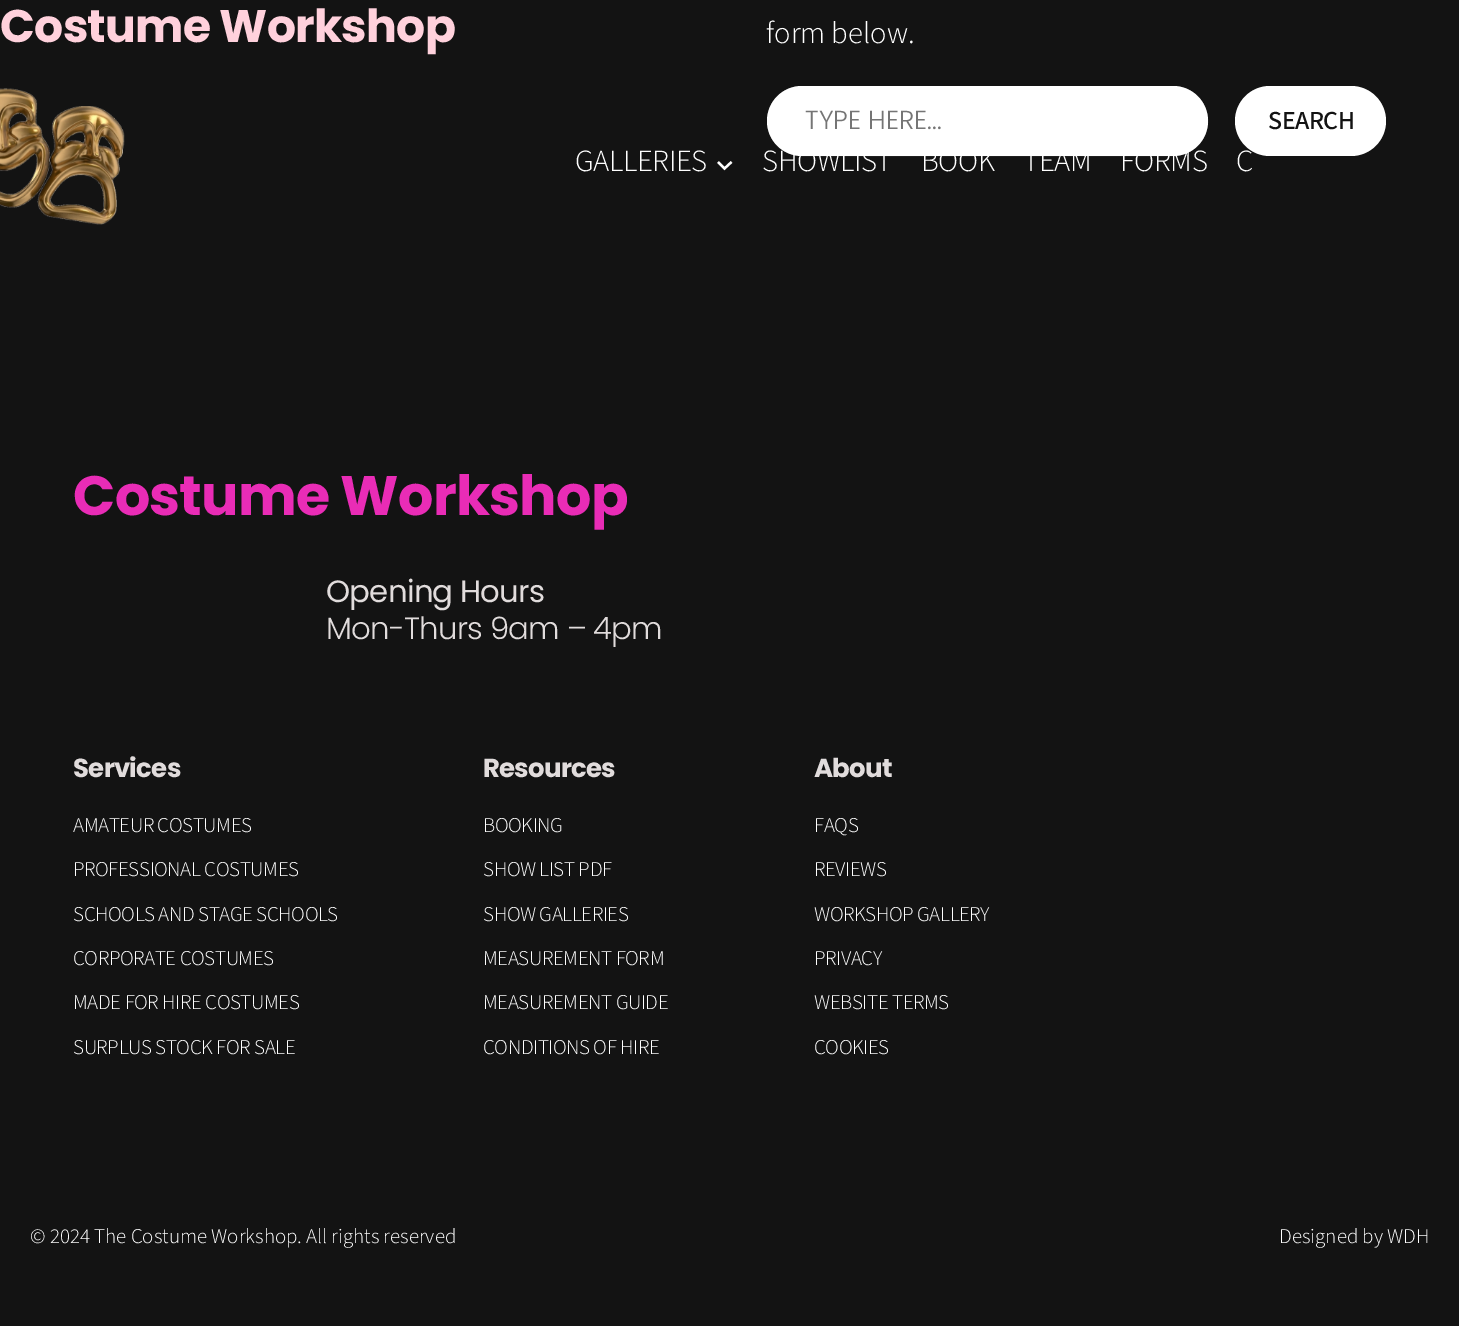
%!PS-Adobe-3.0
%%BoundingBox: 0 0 1459 1326
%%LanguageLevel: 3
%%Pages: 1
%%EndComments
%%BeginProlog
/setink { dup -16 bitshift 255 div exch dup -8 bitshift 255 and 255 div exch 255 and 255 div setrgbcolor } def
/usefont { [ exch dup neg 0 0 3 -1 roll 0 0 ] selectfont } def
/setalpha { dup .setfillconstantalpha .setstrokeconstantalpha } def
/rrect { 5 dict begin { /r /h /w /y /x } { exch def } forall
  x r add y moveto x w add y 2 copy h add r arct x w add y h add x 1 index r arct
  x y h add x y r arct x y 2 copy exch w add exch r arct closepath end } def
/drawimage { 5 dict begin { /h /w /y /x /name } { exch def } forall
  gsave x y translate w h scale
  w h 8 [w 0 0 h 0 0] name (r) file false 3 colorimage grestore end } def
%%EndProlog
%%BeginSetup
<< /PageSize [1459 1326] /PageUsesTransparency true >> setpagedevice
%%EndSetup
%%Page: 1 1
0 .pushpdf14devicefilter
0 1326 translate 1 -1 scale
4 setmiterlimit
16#131313 setink
0 0 1459 1326 rectfill
/Poppins-Bold 45.75 usefont
16#FFD1DC setink
0 42 moveto -0.75 0 (Costume Workshop) ashow
(img1.raw) 0 88 125 137 drawimage
/SourceSans3-Light 30.75 usefont
16#FFFFFF setink
575 171 moveto -0.4 0 (GALLERIES) ashow
2.3 setlinewidth
718 162 moveto 724.5 168.5 lineto 731.5 162 lineto stroke
767 86 441 70 35 rrect fill
0.2 setalpha
2 setlinewidth
768 87 439 68 34 rrect stroke
1 setalpha
762 171 moveto -0.4 0 (SHOWLIST) ashow
921 171 moveto -0.4 0 (BOOK) ashow
1023 171 moveto -0.4 0 (TEAM) ashow
1120 171 moveto -0.4 0 (FORMS) ashow
1235 86 151 70 35 rrect fill
1236 171 moveto -0.4 0 (C) ashow
766 43 moveto (form below.) show
/Poppins-Light 26 usefont
16#757575 setink
805 129 moveto (TYPE HERE...) show
/SourceSans3-Medium 26 usefont
16#131313 setink
1268 129 moveto -0.5 0 (SEARCH) ashow
/Poppins-Bold 55.5 usefont
16#E92CB6 setink
73 515 moveto -0.75 0 (Costume Workshop) ashow
/Poppins-Regular 30.75 usefont
16#E1DCDC setink
326 602 moveto -0.75 0 (Opening Hours) ashow
/Poppins-Light 30.75 usefont
326 639 moveto -0.75 0 (Mon-Thurs 9am – 4pm) ashow
/Poppins-Bold 26 usefont
73 777 moveto -0.75 0 (Services) ashow
/SourceSans3-Light 21 usefont
16#FFFFFF setink
73 832 moveto -0.4 0 (AMATEUR COSTUMES) ashow
73 876 moveto -0.4 0 (PROFESSIONAL COSTUMES) ashow
73 921 moveto -0.4 0 (SCHOOLS AND STAGE SCHOOLS) ashow
73 965 moveto -0.4 0 (CORPORATE COSTUMES) ashow
73 1009 moveto -0.4 0 (MADE FOR HIRE COSTUMES) ashow
73 1054 moveto -0.4 0 (SURPLUS STOCK FOR SALE) ashow
/Poppins-Bold 26 usefont
16#E1DCDC setink
483 777 moveto -0.75 0 (Resources) ashow
/SourceSans3-Light 21 usefont
16#FFFFFF setink
483 832 moveto -0.4 0 (BOOKING) ashow
483 876 moveto -0.4 0 (SHOW LIST PDF) ashow
483 921 moveto -0.4 0 (SHOW GALLERIES) ashow
483 965 moveto -0.4 0 (MEASUREMENT FORM) ashow
483 1009 moveto -0.4 0 (MEASUREMENT GUIDE) ashow
483 1054 moveto -0.4 0 (CONDITIONS OF HIRE) ashow
/Poppins-Bold 26 usefont
16#E1DCDC setink
814 777 moveto -0.75 0 (About) ashow
/SourceSans3-Light 21 usefont
16#FFFFFF setink
814 832 moveto -0.4 0 (FAQS) ashow
814 876 moveto -0.4 0 (REVIEWS) ashow
814 921 moveto -0.4 0 (WORKSHOP GALLERY) ashow
814 965 moveto -0.4 0 (PRIVACY) ashow
814 1009 moveto -0.4 0 (WEBSITE TERMS) ashow
814 1054 moveto -0.4 0 (COOKIES) ashow
30 1243 moveto (© 2024 The Costume Workshop. All rights reserved) show
1279 1243 moveto (Designed by WDH) show
.poppdf14devicefilter showpage
%%EOF
